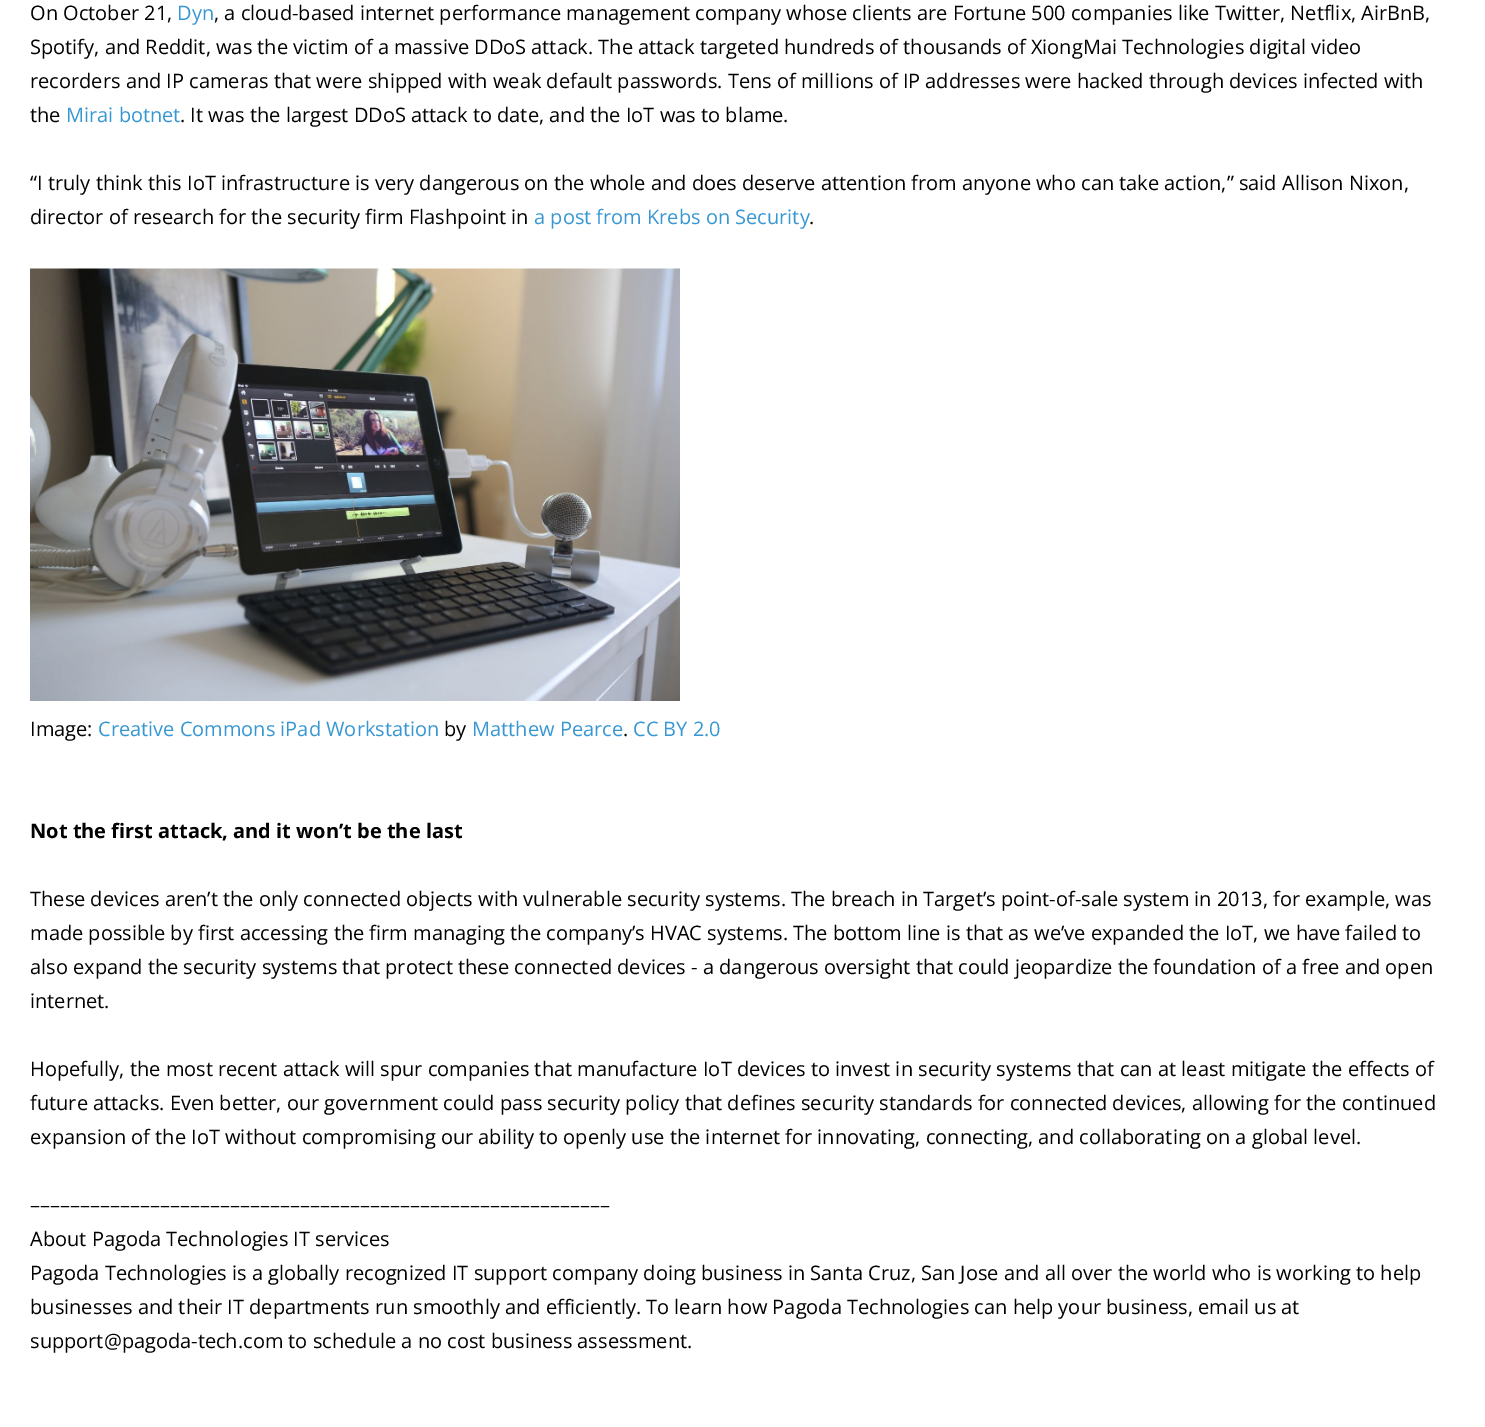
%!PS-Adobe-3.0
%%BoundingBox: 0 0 1485 1427
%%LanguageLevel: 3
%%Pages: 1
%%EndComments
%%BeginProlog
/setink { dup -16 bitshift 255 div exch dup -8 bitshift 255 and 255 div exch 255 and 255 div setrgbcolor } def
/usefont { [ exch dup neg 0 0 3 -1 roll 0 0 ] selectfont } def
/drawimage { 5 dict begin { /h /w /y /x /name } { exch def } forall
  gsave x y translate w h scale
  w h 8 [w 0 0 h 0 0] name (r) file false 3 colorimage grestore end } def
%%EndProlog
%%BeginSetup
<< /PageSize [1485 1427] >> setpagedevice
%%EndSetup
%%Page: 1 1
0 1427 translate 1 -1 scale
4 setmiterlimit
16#FFFFFF setink
0 0 1485 1427 rectfill
/OpenSans-Regular 20 usefont
16#000000 setink
30 20 moveto (On October 21,) show
16#3697D3 setink
177 20 moveto (Dyn) show
16#000000 setink
[
    [(, a cloud-based internet performance management company whose clients are Fortune 500 companies like Twitter, Netflix, AirBnB,) 214 20]
    [(Spotify, and Reddit, was the victim of a massive DDoS attack. The attack targeted hundreds of thousands of XiongMai Technologies digital video) 30 54]
    [(recorders and IP cameras that were shipped with weak default passwords. Tens of millions of IP addresses were hacked through devices infected with) 30 88]
    [(the) 30 122]
] { aload pop moveto show } forall
16#3697D3 setink
66 122 moveto (Mirai botnet) show
16#000000 setink
[
    [(. It was the largest DDoS attack to date, and the IoT was to blame.) 180 122]
    [(“I truly think this IoT infrastructure is very dangerous on the whole and does deserve attention from anyone who can take action,” said Allison Nixon,) 30 190]
    [(director of research for the security firm Flashpoint in) 30 224]
] { aload pop moveto show } forall
16#3697D3 setink
534 224 moveto (a post from Krebs on Security) show
16#000000 setink
809 224 moveto (.) show
(img1.raw) 30 268 650 433 drawimage
30 736 moveto (Image:) show
16#3697D3 setink
98 736 moveto (Creative Commons iPad Workstation) show
16#000000 setink
444 736 moveto (by) show
16#3697D3 setink
472 736 moveto (Matthew Pearce) show
16#000000 setink
623 736 moveto (.) show
16#3697D3 setink
633 736 moveto (CC BY 2.0) show
/OpenSans-Bold 20 usefont
16#000000 setink
30 838 moveto (Not the first attack, and it won’t be the last) show
/OpenSans-Regular 20 usefont
[
    [(These devices aren’t the only connected objects with vulnerable security systems. The breach in Target’s point-of-sale system in 2013, for example, was) 30 906]
    [(made possible by first accessing the firm managing the company’s HVAC systems. The bottom line is that as we’ve expanded the IoT, we have failed to) 30 940]
    [(also expand the security systems that protect these connected devices - a dangerous oversight that could jeopardize the foundation of a free and open) 30 974]
    [(internet.) 30 1008]
    [(Hopefully, the most recent attack will spur companies that manufacture IoT devices to invest in security systems that can at least mitigate the effects of) 30 1076]
    [(future attacks. Even better, our government could pass security policy that defines security standards for connected devices, allowing for the continued) 30 1110]
    [(expansion of the IoT without compromising our ability to openly use the internet for innovating, connecting, and collaborating on a global level.) 30 1144]
    [(––––––––––––––––––––––––––––––––––––––––––––––––––––––––––) 30 1212]
    [(About Pagoda Technologies IT services) 30 1246]
    [(Pagoda Technologies is a globally recognized IT support company doing business in Santa Cruz, San Jose and all over the world who is working to help) 30 1280]
    [(businesses and their IT departments run smoothly and efficiently. To learn how Pagoda Technologies can help your business, email us at) 30 1314]
    [(support@pagoda-tech.com to schedule a no cost business assessment.) 30 1348]
] { aload pop moveto show } forall
showpage
%%EOF
